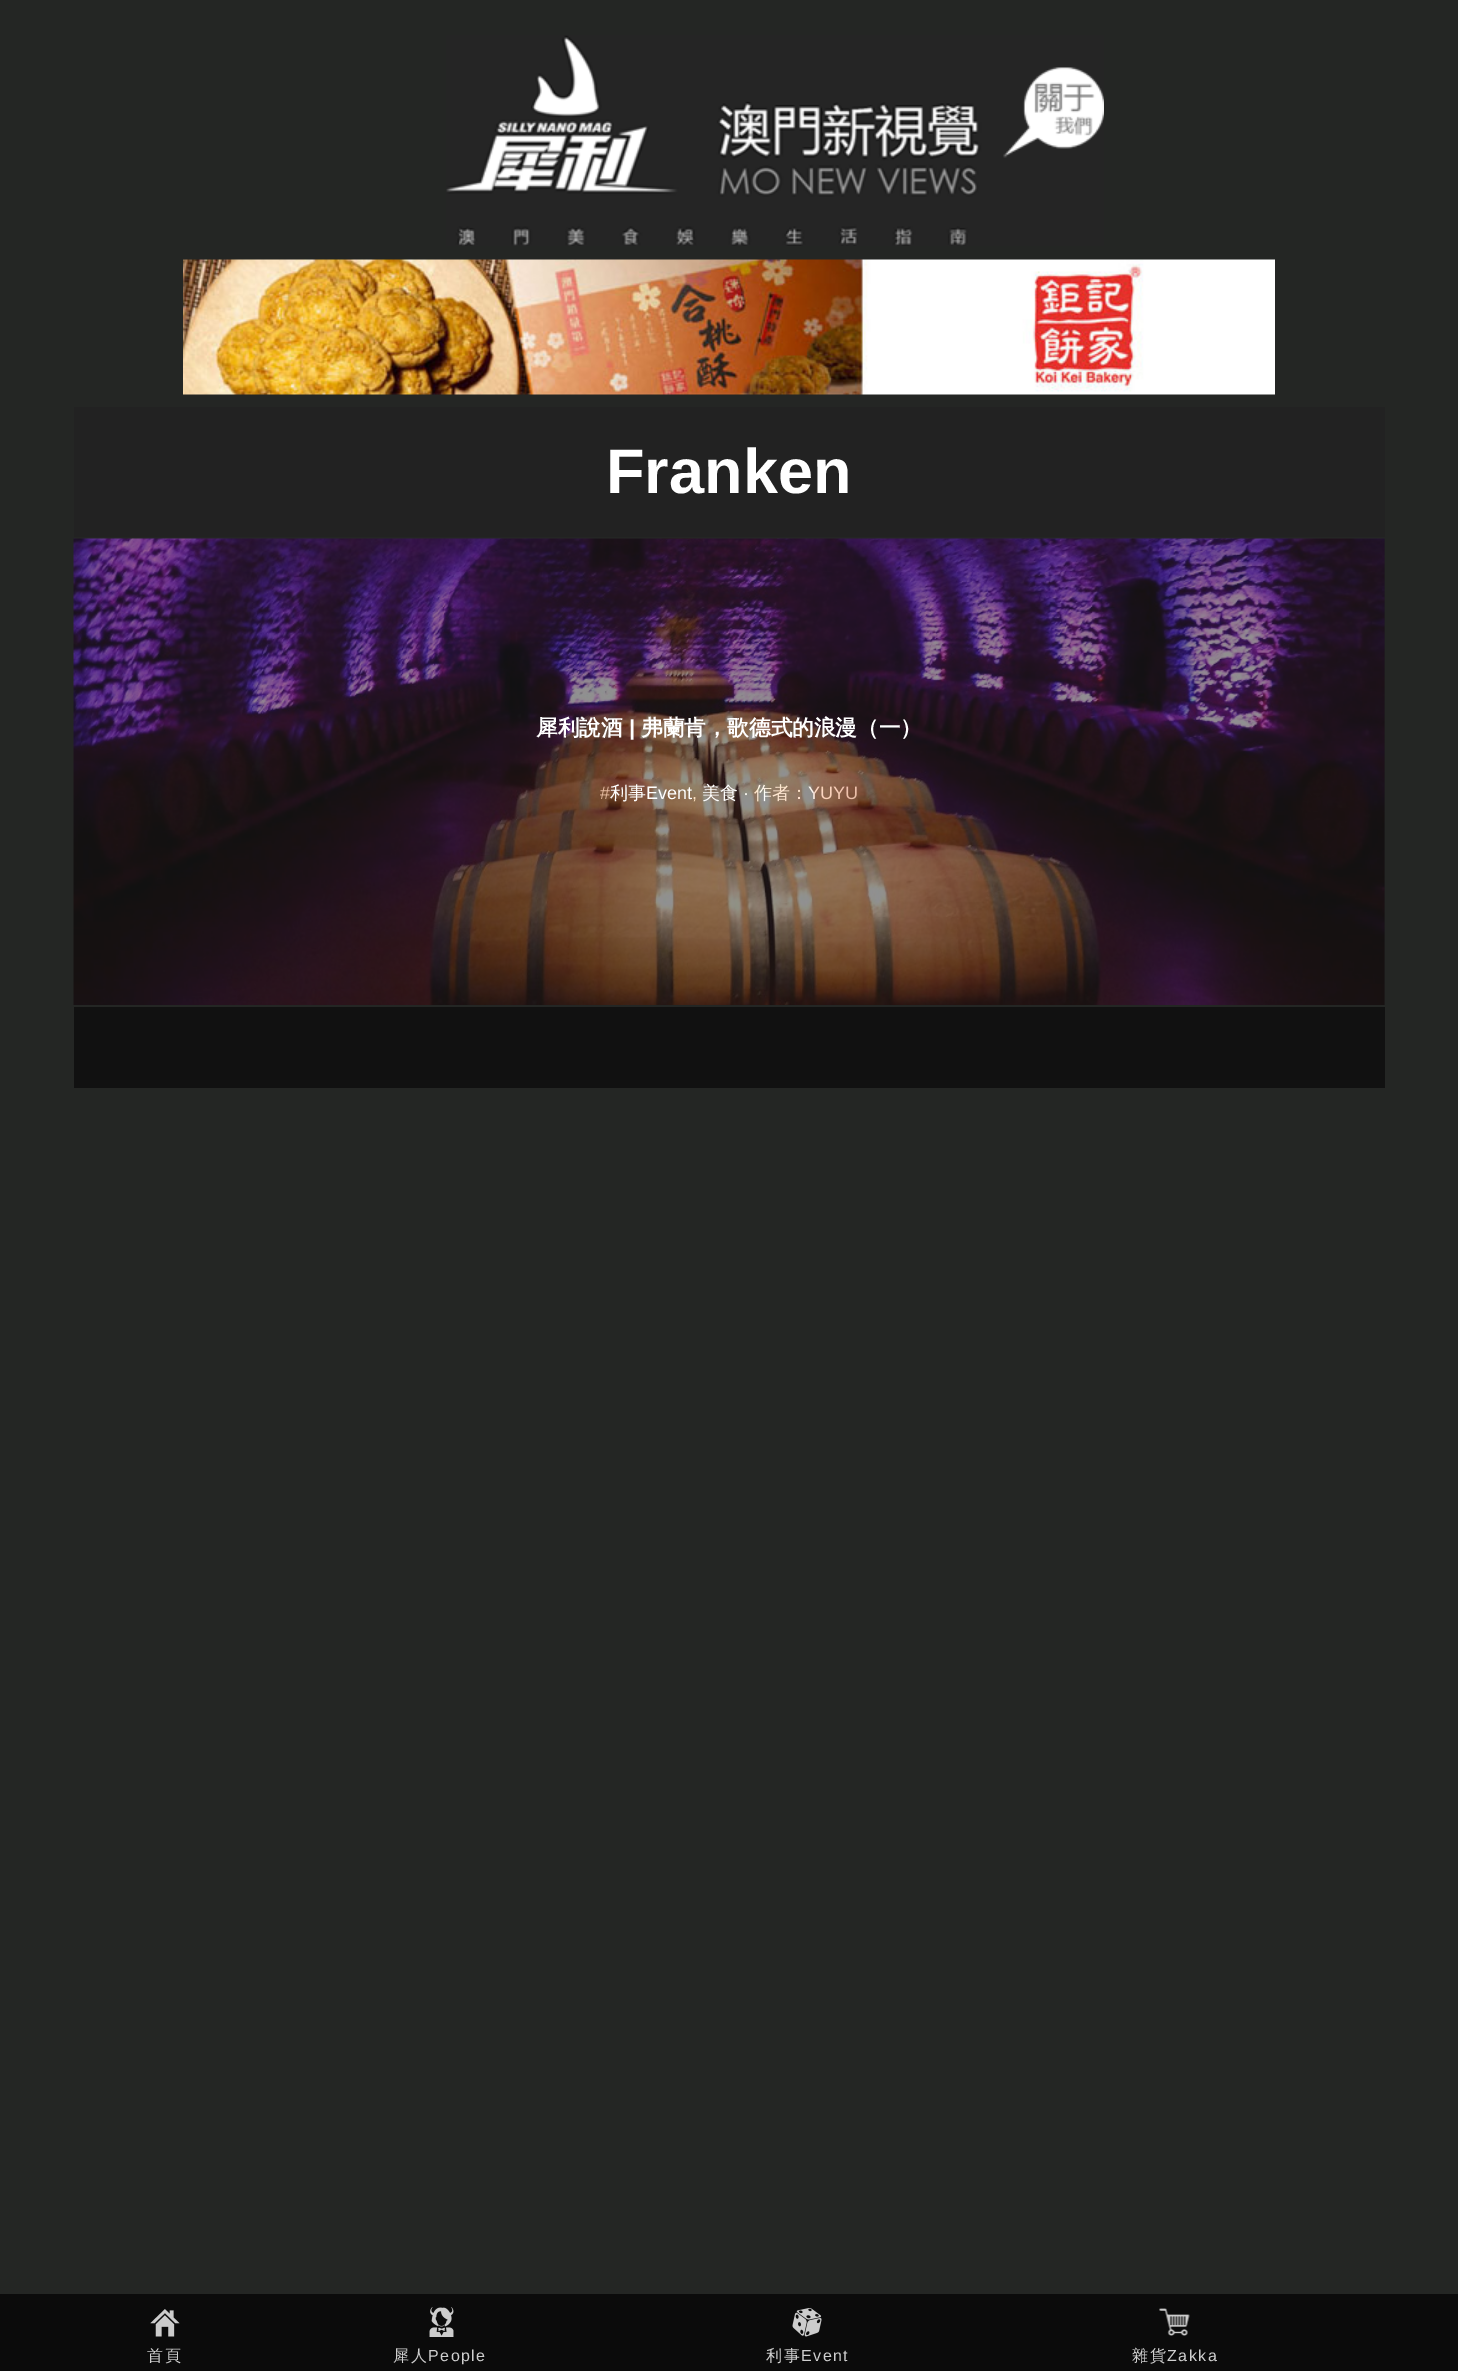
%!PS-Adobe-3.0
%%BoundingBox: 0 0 1458 2371
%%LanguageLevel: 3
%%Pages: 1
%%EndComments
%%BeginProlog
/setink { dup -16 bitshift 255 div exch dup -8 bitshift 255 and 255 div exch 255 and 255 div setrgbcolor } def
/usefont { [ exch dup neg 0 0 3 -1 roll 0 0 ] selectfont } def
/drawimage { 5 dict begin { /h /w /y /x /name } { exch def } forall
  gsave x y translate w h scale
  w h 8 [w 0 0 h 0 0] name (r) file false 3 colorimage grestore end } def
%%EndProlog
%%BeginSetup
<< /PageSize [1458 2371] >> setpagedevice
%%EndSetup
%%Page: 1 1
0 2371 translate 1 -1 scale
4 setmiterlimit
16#242624 setink
0 0 1458 2371 rectfill
(img1.raw) 183 259 1092 136 drawimage
16#222222 setink
74 407 1311 130 rectfill
/LiberationSans-Bold 63 usefont
16#FFFFFF setink
606 493 moveto (Franken) show
16#222222 setink
74 539 1311 466 rectfill
/LiberationSans-Regular 18 usefont
16#FFFFFF setink
600 799 moveto (#) show
743 799 moveto (·) show
/WenQuanYiZenHei-Medium 18 usefont
754 799 moveto (作者：) show
/LiberationSans-Regular 18 usefont
808 799 moveto (YUYU) show
692 799 moveto (,) show
(img2.raw) 73 538 1312 467 drawimage
/WenQuanYiZenHei-Bold 21.6 usefont
536 735 moveto (犀利說酒) show
/LiberationSans-Bold 21.6 usefont
629 735 moveto (|) show
/WenQuanYiZenHei-Bold 21.6 usefont
641 735 moveto (弗蘭肯，歌德式的浪漫（一）) show
/WenQuanYiZenHei-Medium 18 usefont
610 799 moveto (利事) show
/LiberationSans-Regular 18 usefont
646 799 moveto (Event) show
/WenQuanYiZenHei-Medium 18 usefont
702 799 moveto (美食) show
16#111111 setink
74 1007 1311 81 rectfill
(img3.raw) 446 35 658 211 drawimage
16#0B0B0B setink
0 2294 1458 77 rectfill
(img4.raw) 150 2309 30 28 drawimage
/WenQuanYiZenHei-Medium 16 usefont
16#CFCFCF setink
147 2361 moveto 1.5 0 (首頁) ashow
(img5.raw) 429 2307 25 30 drawimage
393 2361 moveto 1.5 0 (犀人) ashow
/LiberationSans-Regular 16 usefont
428 2361 moveto 1.5 0 (People) ashow
(img6.raw) 792 2308 30 29 drawimage
/WenQuanYiZenHei-Medium 16 usefont
766 2361 moveto 1.5 0 (利事) ashow
/LiberationSans-Regular 16 usefont
801 2361 moveto 1.5 0 (Event) ashow
(img7.raw) 1159 2308 31 28 drawimage
/WenQuanYiZenHei-Medium 16 usefont
1132 2361 moveto 1.5 0 (雜貨) ashow
/LiberationSans-Regular 16 usefont
1167 2361 moveto 1.5 0 (Zakka) ashow
showpage
%%EOF
